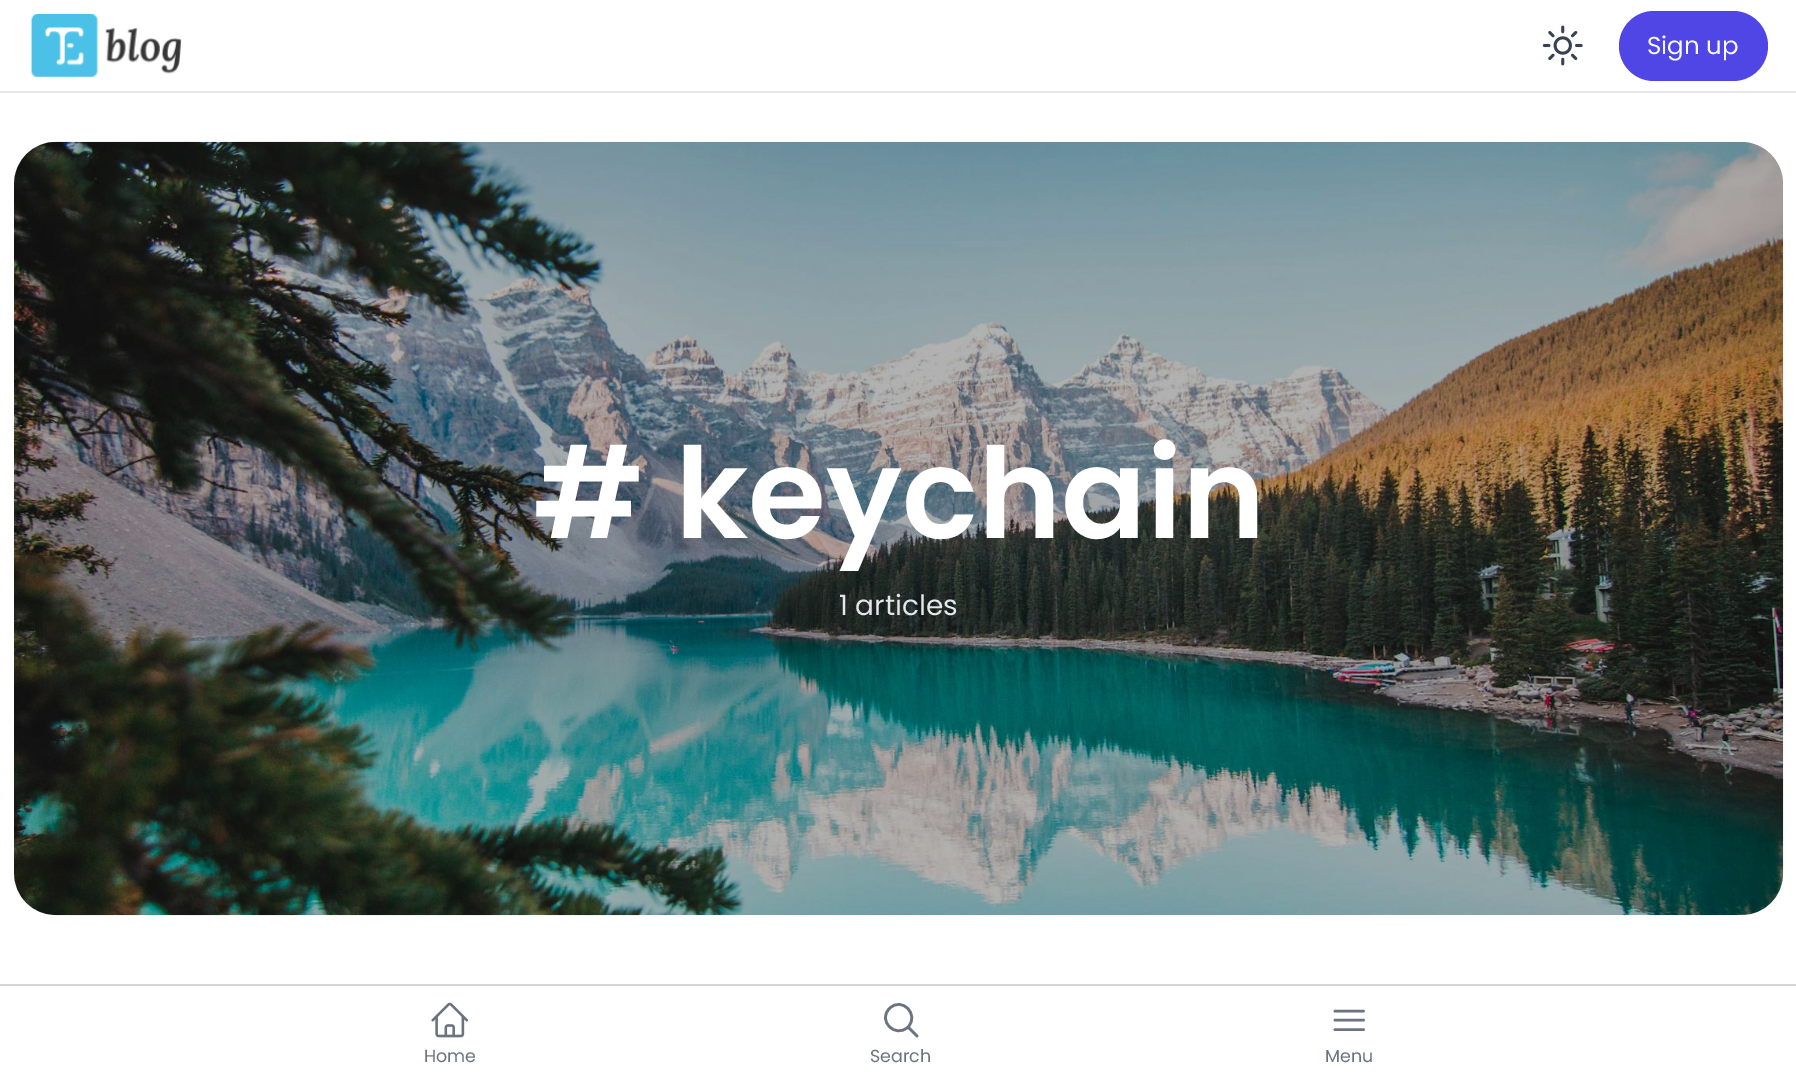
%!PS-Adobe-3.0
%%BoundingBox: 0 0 1796 1079
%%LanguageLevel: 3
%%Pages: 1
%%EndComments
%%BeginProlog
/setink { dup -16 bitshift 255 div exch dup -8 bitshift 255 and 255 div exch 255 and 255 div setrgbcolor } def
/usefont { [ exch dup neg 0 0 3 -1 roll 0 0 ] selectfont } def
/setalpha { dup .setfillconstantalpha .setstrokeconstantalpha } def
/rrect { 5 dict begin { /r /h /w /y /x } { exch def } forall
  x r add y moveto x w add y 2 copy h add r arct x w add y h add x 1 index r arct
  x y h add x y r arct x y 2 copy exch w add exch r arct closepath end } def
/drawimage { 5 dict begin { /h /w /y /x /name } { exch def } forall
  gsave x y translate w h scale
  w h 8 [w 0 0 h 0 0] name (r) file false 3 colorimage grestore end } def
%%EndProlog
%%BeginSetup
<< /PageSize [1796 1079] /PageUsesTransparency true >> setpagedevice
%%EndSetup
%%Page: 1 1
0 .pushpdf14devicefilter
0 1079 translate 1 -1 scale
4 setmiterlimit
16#FFFFFF setink
0 0 1796 1079 rectfill
16#E5E7EB setink
0 91 1796 2 rectfill
(img1.raw) 30 14 152 63 drawimage
(img2.raw) 1542 25 41 41 drawimage
16#4F46E5 setink
1619 11 149 70 35 rrect fill
/Poppins-Regular 24.5 usefont
16#F9FAFB setink
1647 54 moveto (Sign up) show
(img3.raw) 14 141 1770 775 drawimage
0.3 setalpha
16#000000 setink
14 142 1769 773 42 rrect fill
/Poppins-SemiBold 126 usefont
1 setalpha
16#FFFFFF setink
533 538 moveto (# keychain) show
/Poppins-Regular 28 usefont
16#E5E7EB setink
839 615 moveto (1 articles) show
16#D1D5DB setink
0 984 1796 2 rectfill
(img4.raw) 431 1002 38 36 drawimage
/Poppins-Regular 17.5 usefont
16#6B7280 setink
424 1062 moveto (Home) show
2.6 setlinewidth
1 setlinecap
1 setlinejoin
917 1036 moveto 908 1027 lineto 908 1027 moveto 920 1014.5 901.5 996 889.5 1008.5 curveto 877 1020.5 895.5 1039 908 1027 curveto closepath stroke
870 1062 moveto (Search) show
1335 1011 moveto 1363.5 1011 lineto 1335 1020 moveto 1363.5 1020 lineto 1335 1029.5 moveto 1363.5 1029.5 lineto stroke
1325 1062 moveto (Menu) show
.poppdf14devicefilter showpage
%%EOF
